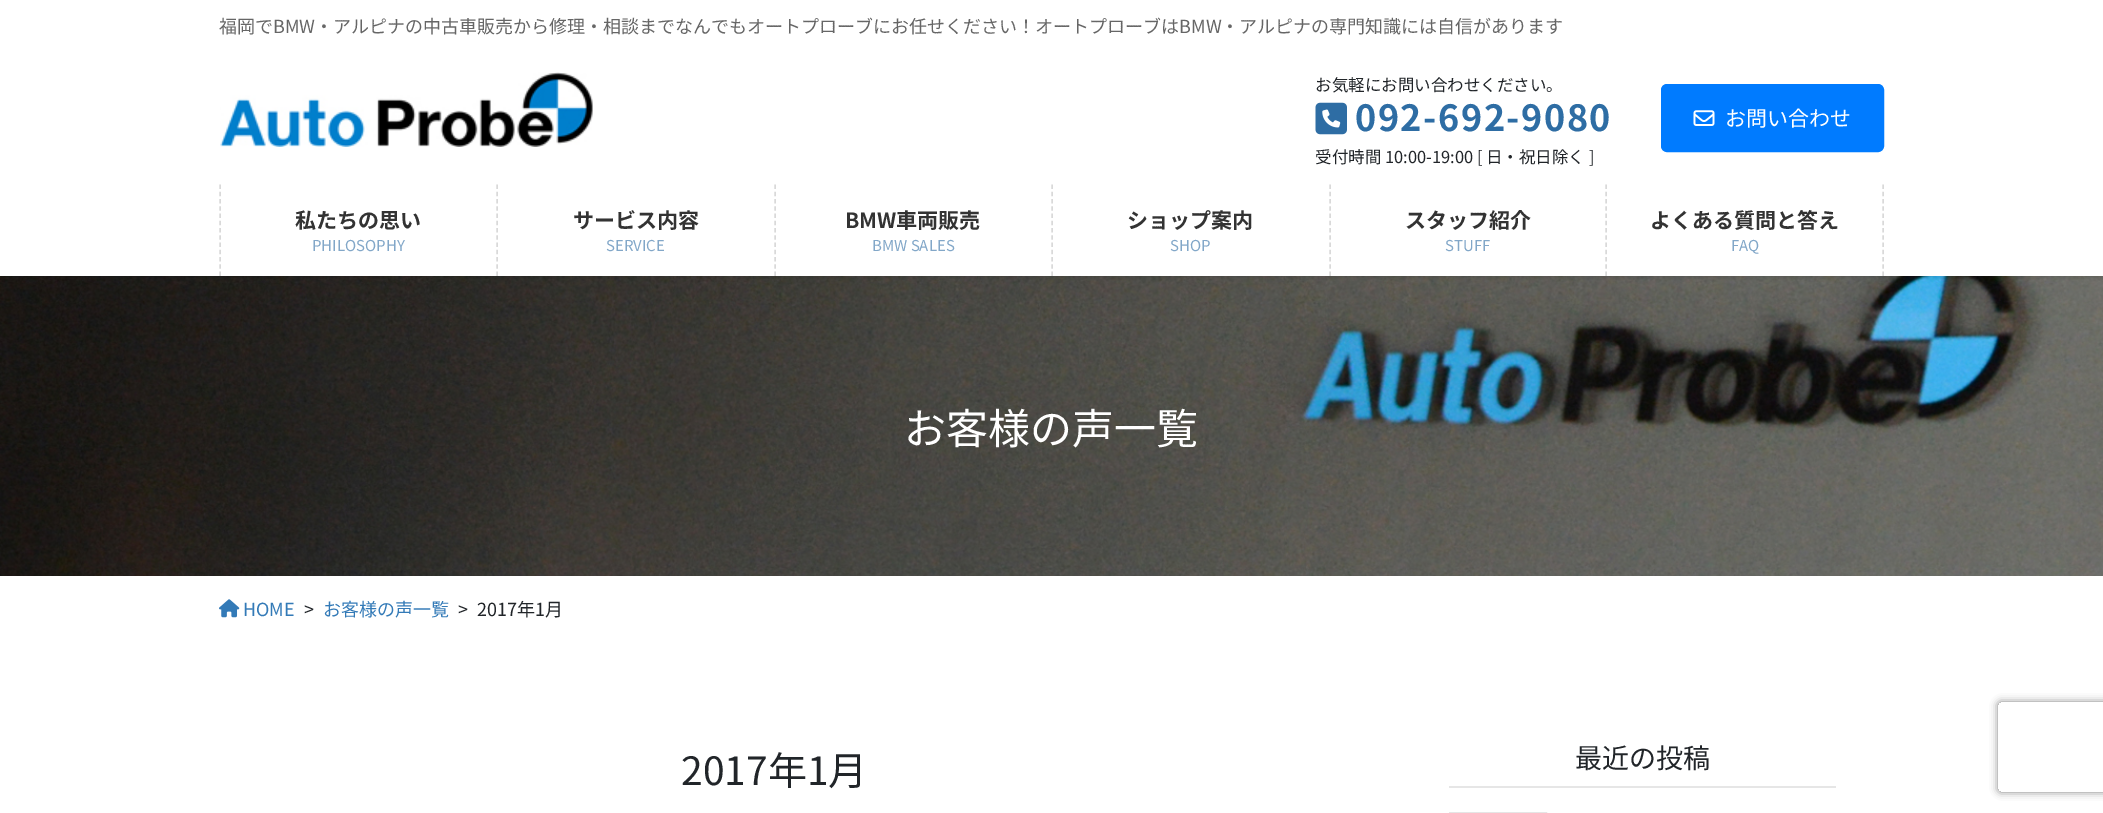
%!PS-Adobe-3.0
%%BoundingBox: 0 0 2103 813
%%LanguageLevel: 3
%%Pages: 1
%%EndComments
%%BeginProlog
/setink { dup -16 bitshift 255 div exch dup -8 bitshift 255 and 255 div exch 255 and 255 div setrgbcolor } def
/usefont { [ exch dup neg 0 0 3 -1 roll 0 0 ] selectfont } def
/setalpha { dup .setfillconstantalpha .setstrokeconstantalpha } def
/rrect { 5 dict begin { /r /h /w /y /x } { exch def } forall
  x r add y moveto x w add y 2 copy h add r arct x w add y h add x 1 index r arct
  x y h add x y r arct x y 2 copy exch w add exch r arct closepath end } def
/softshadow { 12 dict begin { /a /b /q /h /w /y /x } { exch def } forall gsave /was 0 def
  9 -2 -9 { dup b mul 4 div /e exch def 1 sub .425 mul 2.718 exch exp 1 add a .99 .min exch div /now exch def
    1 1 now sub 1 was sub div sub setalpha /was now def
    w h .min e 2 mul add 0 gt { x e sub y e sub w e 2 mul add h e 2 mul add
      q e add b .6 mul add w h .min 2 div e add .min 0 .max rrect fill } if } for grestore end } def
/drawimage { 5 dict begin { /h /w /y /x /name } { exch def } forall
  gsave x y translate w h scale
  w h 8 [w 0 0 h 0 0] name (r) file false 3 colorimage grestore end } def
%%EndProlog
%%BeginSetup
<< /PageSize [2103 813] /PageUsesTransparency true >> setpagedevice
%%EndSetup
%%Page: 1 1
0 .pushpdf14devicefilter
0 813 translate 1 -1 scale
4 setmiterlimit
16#FFFFFF setink
0 0 2103 813 rectfill
(img4.raw) 0 276 2103 300 drawimage
gsave
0 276 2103 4 rectclip
16#000000 setink
0 -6 2103 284 0 2 0.1 softshadow
grestore
/NotoSansJP-Regular 18 usefont
16#666666 setink
219 33 moveto (福岡でBMW・アルピナの中古車販売から修理・相談までなんでもオートプローブにお任せください！オートプローブはBMW・アルピナの専門知識には自信があります) show
(img1.raw) 220 72 373 75 drawimage
/NotoSansJP-Regular 16.5 usefont
16#212529 setink
1315 91 moveto (お気軽にお問い合わせください。) show
(img2.raw) 1315 102 32 33 drawimage
/NotoSansJP-Bold 36 usefont
16#2E6DA4 setink
1355 131 moveto 1.5 0 (092-692-9080) ashow
/NotoSansJP-Regular 16.5 usefont
16#212529 setink
1315 163 moveto (受付時間 10:00-19:00 [ 日・祝日除く ]) show
16#007BFF setink
1662 85 221 66 5 rrect gsave fill grestore
2 setlinewidth
stroke
(img3.raw) 1693 110 22 16 drawimage
/NotoSansJP-Regular 21 usefont
16#FFFFFF setink
1725 126 moveto (お問い合わせ) show
16#D9D9D9 setink
1.5 setlinewidth
[4.5 2.75] 0 setdash
220 184.5 moveto 220 276 lineto stroke
/NotoSansJP-Bold 21 usefont
16#333333 setink
295 228 moveto (私たちの思い) show
/NotoSansJP-Regular 15 usefont
16#82A7C8 setink
312 251 moveto (PHILOSOPHY) show
16#D9D9D9 setink
497 184.5 moveto 497 276 lineto stroke
/NotoSansJP-Bold 21 usefont
16#333333 setink
573 228 moveto (サービス内容) show
/NotoSansJP-Regular 15 usefont
16#82A7C8 setink
606 251 moveto (SERVICE) show
16#D9D9D9 setink
775 184.5 moveto 775 276 lineto stroke
/NotoSansJP-Bold 21 usefont
16#333333 setink
845 228 moveto (BMW車両販売) show
/NotoSansJP-Regular 15 usefont
16#82A7C8 setink
872 251 moveto (BMW SALES) show
16#D9D9D9 setink
1052 184.5 moveto 1052 276 lineto stroke
/NotoSansJP-Bold 21 usefont
16#333333 setink
1127 228 moveto (ショップ案内) show
/NotoSansJP-Regular 15 usefont
16#82A7C8 setink
1170 251 moveto (SHOP) show
16#D9D9D9 setink
1330 184.5 moveto 1330 276 lineto stroke
/NotoSansJP-Bold 21 usefont
16#333333 setink
1405 228 moveto (スタッフ紹介) show
/NotoSansJP-Regular 15 usefont
16#82A7C8 setink
1445 251 moveto (STUFF) show
16#D9D9D9 setink
1883 184.5 moveto 1883 276 lineto stroke
1606 184.5 moveto 1606 276 lineto stroke
/NotoSansJP-Bold 21 usefont
16#333333 setink
1650 228 moveto (よくある質問と答え) show
/NotoSansJP-Regular 15 usefont
16#82A7C8 setink
1731 251 moveto (FAQ) show
/NotoSansJP-Regular 42 usefont
16#FFFFFF setink
904 444 moveto (お客様の声一覧) show
(img5.raw) 219 599 21 19 drawimage
/NotoSansJP-Regular 18 usefont
16#337AB7 setink
243 616 moveto (HOME) show
16#212529 setink
304 616 moveto (>) show
16#337AB7 setink
323 616 moveto (お客様の声一覧) show
16#212529 setink
458 616 moveto (>) show
477 616 moveto (2017年1月) show
/NotoSansJP-Regular 39 usefont
681 785 moveto (2017年1月) show
16#E6E6E6 setink
1449 786 387 2 rectfill
/NotoSansJP-Regular 27 usefont
16#212529 setink
1575 768 moveto (最近の投稿) show
16#E5E5E5 setink
2 setlinewidth
[] 0 setdash
1450 813 96 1 rectstroke
gsave
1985 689 moveto 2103 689 lineto 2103 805 lineto 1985 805 lineto closepath 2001 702 moveto 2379 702 lineto 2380.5 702 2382 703.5 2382 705 curveto 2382 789 lineto 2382 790.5 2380.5 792 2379 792 curveto 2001 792 lineto 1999.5 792 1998 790.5 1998 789 curveto 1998 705 lineto 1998 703.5 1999.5 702 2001 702 curveto closepath eoclip newpath
16#808080 setink
1998 702 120 90 3 4 1 softshadow
grestore
.poppdf14devicefilter showpage
%%EOF
